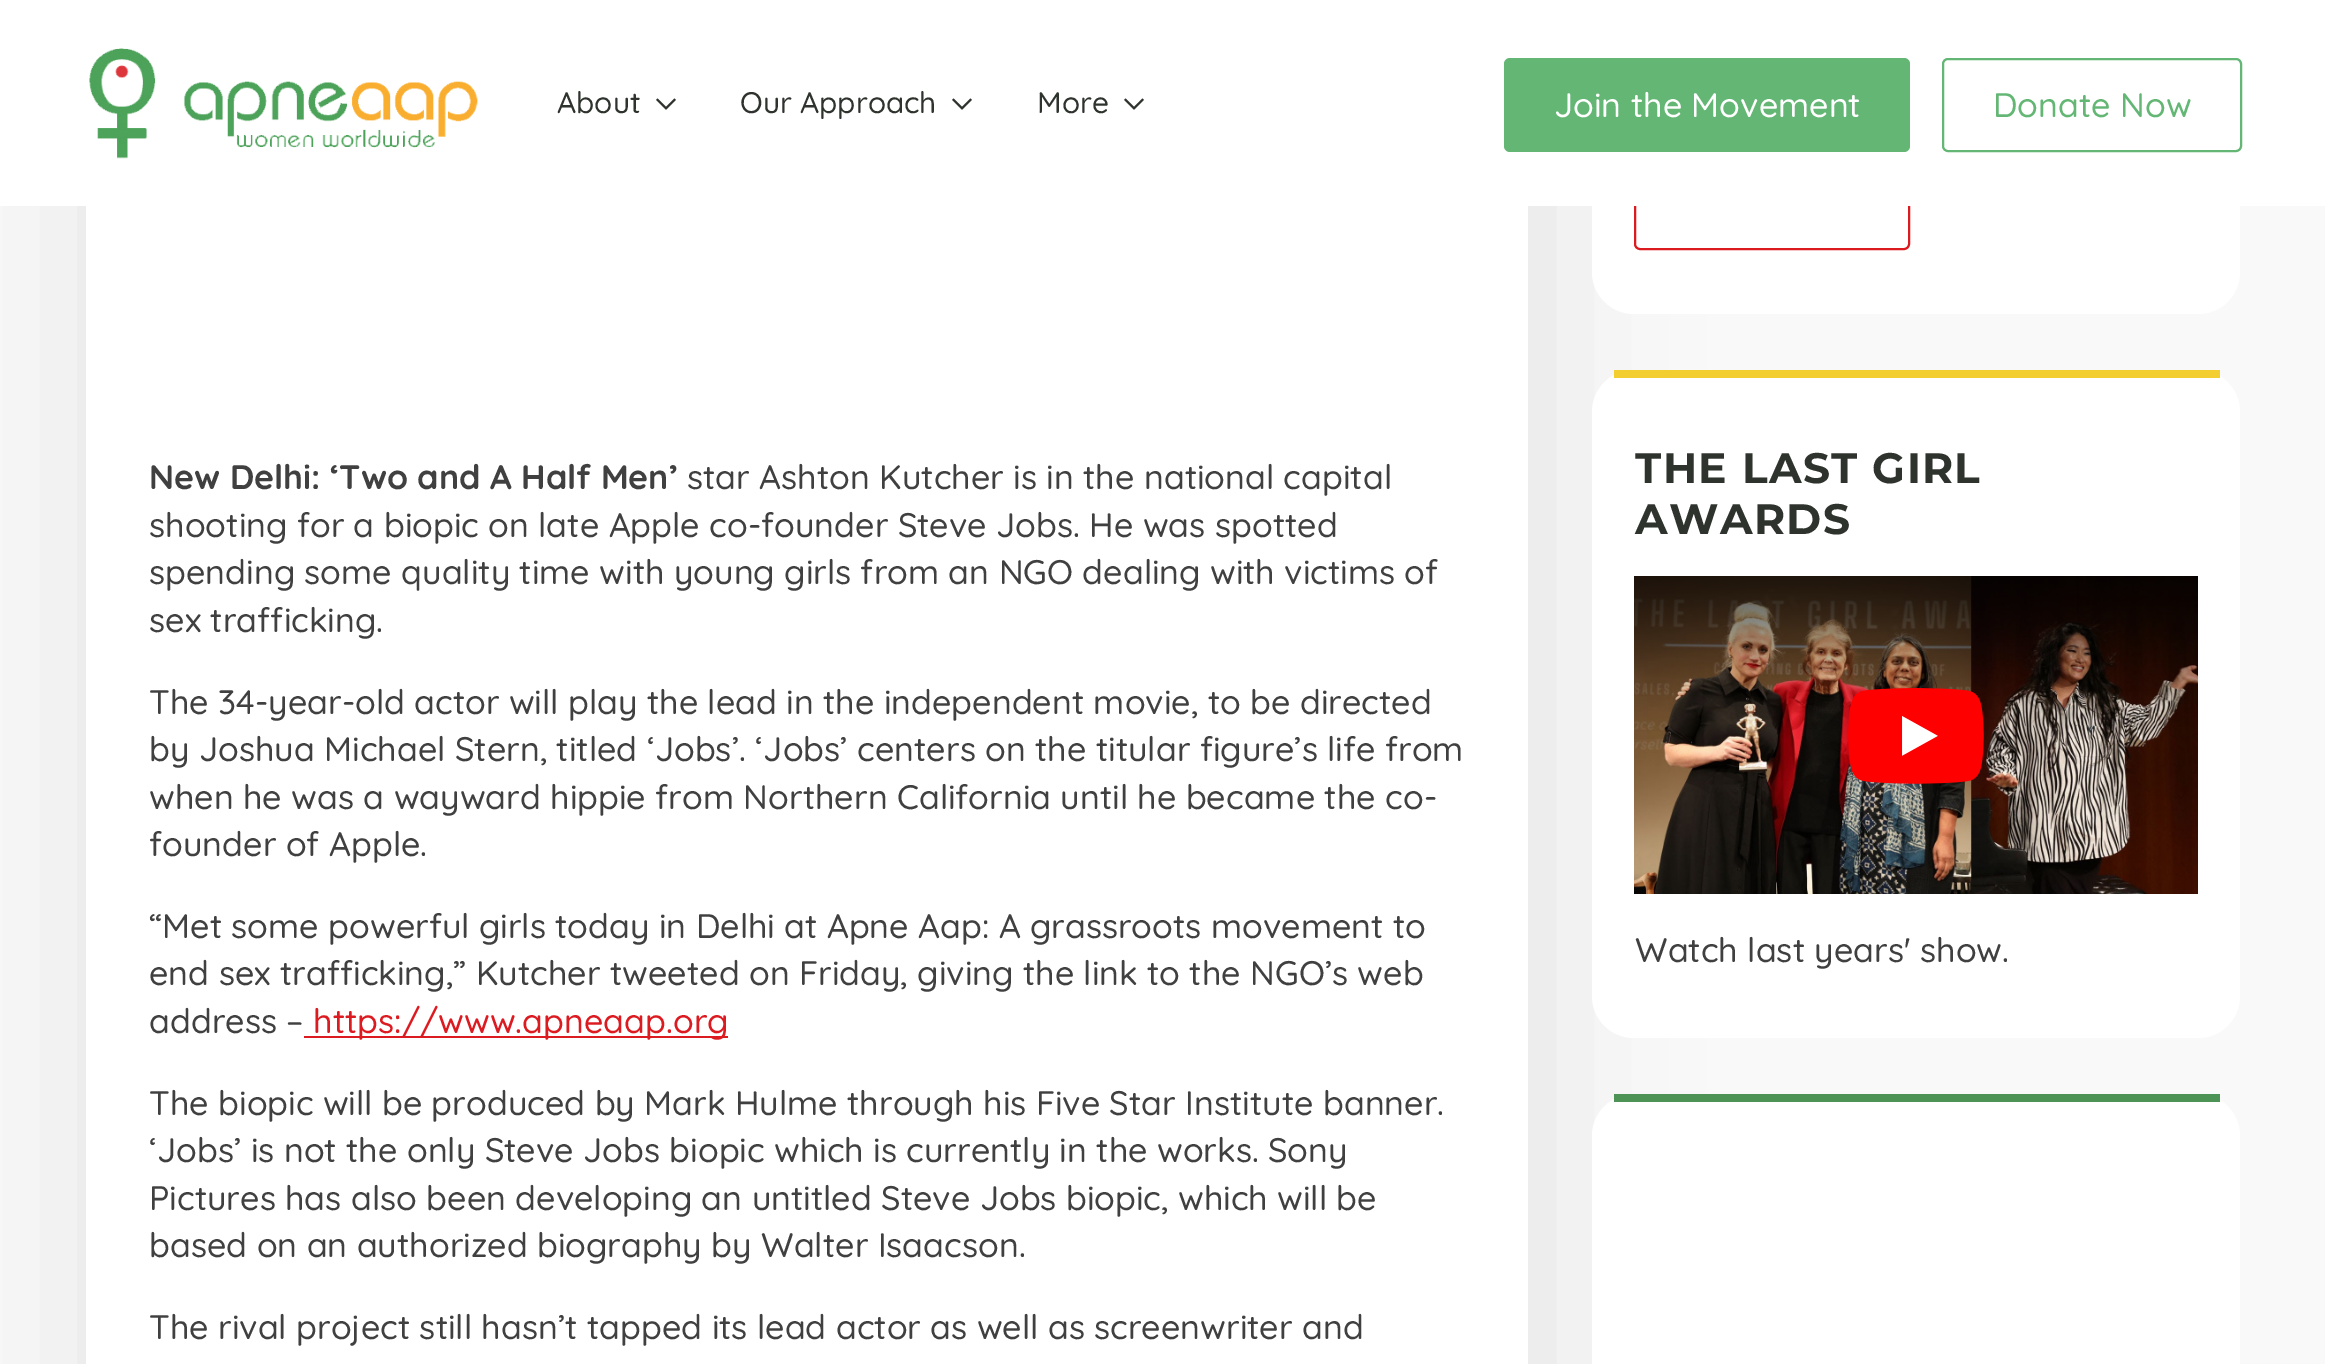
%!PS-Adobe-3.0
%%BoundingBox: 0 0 2325 1364
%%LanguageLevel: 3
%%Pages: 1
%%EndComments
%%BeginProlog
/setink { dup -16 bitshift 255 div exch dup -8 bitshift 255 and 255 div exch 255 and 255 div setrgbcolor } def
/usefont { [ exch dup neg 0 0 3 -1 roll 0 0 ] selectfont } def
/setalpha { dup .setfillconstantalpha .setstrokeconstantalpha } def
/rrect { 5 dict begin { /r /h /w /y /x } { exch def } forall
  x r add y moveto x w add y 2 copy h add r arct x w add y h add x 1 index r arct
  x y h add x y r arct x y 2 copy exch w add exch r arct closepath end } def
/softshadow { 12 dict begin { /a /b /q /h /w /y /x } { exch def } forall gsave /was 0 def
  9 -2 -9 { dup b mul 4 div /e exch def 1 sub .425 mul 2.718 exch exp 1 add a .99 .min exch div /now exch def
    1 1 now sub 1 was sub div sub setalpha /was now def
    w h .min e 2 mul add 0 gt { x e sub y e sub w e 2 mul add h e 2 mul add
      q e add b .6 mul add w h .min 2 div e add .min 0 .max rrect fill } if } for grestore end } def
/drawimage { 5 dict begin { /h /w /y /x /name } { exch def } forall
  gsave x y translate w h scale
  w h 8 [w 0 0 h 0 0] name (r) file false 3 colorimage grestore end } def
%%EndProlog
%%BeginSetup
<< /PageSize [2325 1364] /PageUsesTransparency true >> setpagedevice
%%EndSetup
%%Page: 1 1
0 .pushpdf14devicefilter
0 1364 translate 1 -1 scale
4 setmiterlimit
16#F9F9F9 setink
0 0 2325 1364 rectfill
16#000000 setink
96 -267 1442 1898 42 75 0.09 softshadow
16#FFFFFF setink
1592 -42 648 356 42 rrect fill
16#DC1B21 setink
2 setlinewidth
1635 157 274 92 5 rrect stroke
16#FFFFFF setink
0 0 2325 206 rectfill
(img1.raw) 89 48 389 111 drawimage
/Quicksand-Medium 29.75 usefont
16#2E332E setink
557 113 moveto (About) show
(img2.raw) 656 98 20 12 drawimage
740 113 moveto (Our Approach) show
(img2.raw) 952 98 20 12 drawimage
1037 113 moveto (More) show
(img2.raw) 1124 98 20 12 drawimage
16#64B675 setink
1504 58 406 94 6 rrect fill
/Quicksand-Medium 34 usefont
16#FFFFFF setink
1554 117 moveto (Join the Movement) show
16#64B675 setink
1943 59 298 92 5 rrect stroke
1993 117 moveto (Donate Now) show
16#FFFFFF setink
86 206 1442 1158 rectfill
/Quicksand-Bold 34 usefont
16#404040 setink
149 489 moveto (New Delhi: ‘Two and A Half Men’) show
/Quicksand-Medium 34 usefont
[
    [(star Ashton Kutcher is in the national capital) 687 489]
    [(shooting for a biopic on late Apple co-founder Steve Jobs. He was spotted) 149 537]
    [(spending some quality time with young girls from an NGO dealing with victims of) 149 584]
    [(sex trafficking.) 149 632]
    [(The 34-year-old actor will play the lead in the independent movie, to be directed) 149 714]
    [(by Joshua Michael Stern, titled ‘Jobs’. ‘Jobs’ centers on the titular figure’s life from) 149 761]
    [(when he was a wayward hippie from Northern California until he became the co-) 149 809]
    [(founder of Apple.) 149 856]
    [(“Met some powerful girls today in Delhi at Apne Aap: A grassroots movement to) 149 938]
    [(end sex trafficking,” Kutcher tweeted on Friday, giving the link to the NGO’s web) 149 985]
    [(address –) 149 1033]
] { aload pop moveto show } forall
16#DC1B21 setink
304 1036 424 2 rectfill
313 1033 moveto (https://www.apneaap.org) show
16#404040 setink
[
    [(The biopic will be produced by Mark Hulme through his Five Star Institute banner.) 149 1115]
    [(‘Jobs’ is not the only Steve Jobs biopic which is currently in the works. Sony) 149 1162]
    [(Pictures has also been developing an untitled Steve Jobs biopic, which will be) 149 1210]
    [(based on an authorized biography by Walter Isaacson.) 149 1257]
    [(The rival project still hasn’t tapped its lead actor as well as screenwriter and) 149 1339]
] { aload pop moveto show } forall
16#FFFFFF setink
1592 370 648 668 42 rrect fill
16#F2CE31 setink
1614 370 606 8 rectfill
/Montserrat-Bold 42.5 usefont
16#2E332E setink
1635 483 moveto 1.4 0 (THE LAST GIRL) ashow
1635 534 moveto 1.4 0 (AWARDS) ashow
(img3.raw) 1634 576 564 318 drawimage
(img4.raw) 1634 576 564 163 drawimage
(img5.raw) 1848 688 136 96 drawimage
/Quicksand-Medium 34 usefont
16#404040 setink
1635 962 moveto (Watch last years' show.) show
16#FFFFFF setink
1592 1094 648 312 42 rrect fill
16#4C9355 setink
1614 1094 606 8 rectfill
.poppdf14devicefilter showpage
%%EOF
